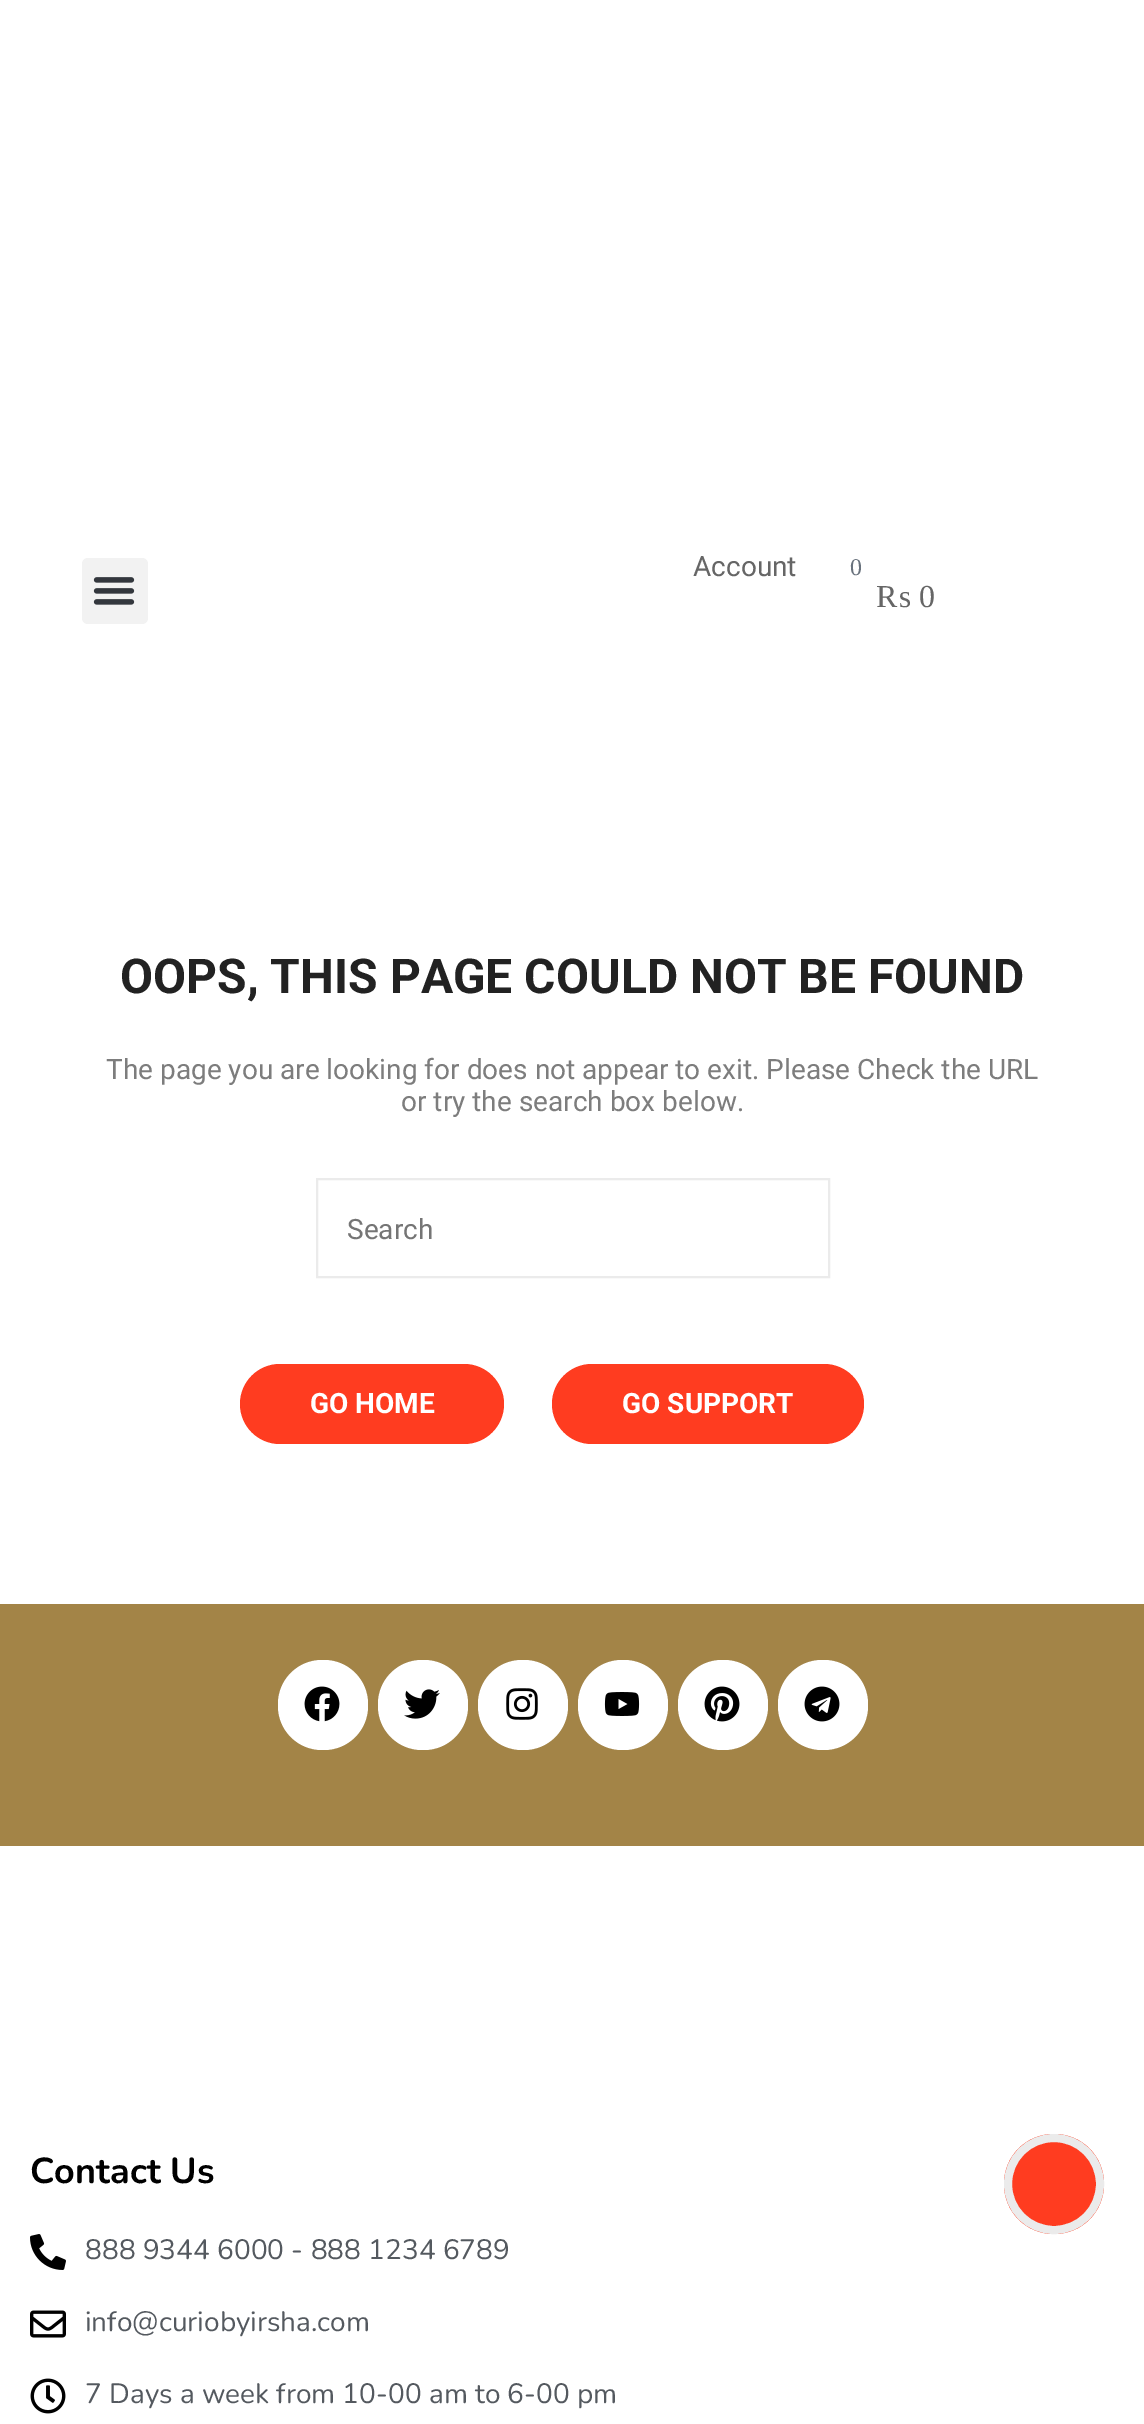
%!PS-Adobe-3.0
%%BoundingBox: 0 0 1144 2424
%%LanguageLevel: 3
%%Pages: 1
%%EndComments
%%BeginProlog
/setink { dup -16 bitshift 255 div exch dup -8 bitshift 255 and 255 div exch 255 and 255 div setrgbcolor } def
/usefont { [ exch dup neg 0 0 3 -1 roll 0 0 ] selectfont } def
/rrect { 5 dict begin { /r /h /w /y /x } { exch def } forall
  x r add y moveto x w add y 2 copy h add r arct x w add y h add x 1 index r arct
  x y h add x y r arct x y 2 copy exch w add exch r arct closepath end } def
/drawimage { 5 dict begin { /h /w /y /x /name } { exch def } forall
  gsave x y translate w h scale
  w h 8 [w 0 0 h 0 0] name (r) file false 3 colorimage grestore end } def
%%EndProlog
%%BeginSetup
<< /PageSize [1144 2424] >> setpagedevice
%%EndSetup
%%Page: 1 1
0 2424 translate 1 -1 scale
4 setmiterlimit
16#FFFFFF setink
0 0 1144 2424 rectfill
16#F2F2F2 setink
82 558 66 66 6 rrect fill
(img1.raw) 93 577 42 28 drawimage
/Roboto-Regular 28 usefont
16#666666 setink
693 576 moveto (Account) show
/LiberationSerif-Regular 24 usefont
16#69727D setink
850 575 moveto (0) show
/LiberationSerif-Regular 32 usefont
16#666666 setink
876 607 moveto (₨ 0) show
/Roboto-Bold 48 usefont
16#222222 setink
120 993 moveto (OOPS, THIS PAGE COULD NOT BE FOUND) show
/Roboto-Regular 28 usefont
16#7D7D7D setink
106 1079 moveto (The page you are looking for does not appear to exit. Please Check the URL) show
401 1111 moveto (or try the search box below.) show
16#EBEBEB setink
2 setlinewidth
317 1179 512 98 rectstroke
16#757575 setink
347 1239 moveto (Search) show
16#FF3C20 setink
240 1364 264 80 40 rrect fill
/Roboto-Bold 28 usefont
16#FFFFFF setink
310 1413 moveto (GO HOME) show
16#FF3C20 setink
552 1364 312 80 40 rrect fill
16#FFFFFF setink
622 1413 moveto (GO SUPPORT) show
16#A38447 setink
0 1604 1144 242 rectfill
16#FFFFFF setink
278 1660 90 90 44 rrect fill
(img2.raw) 304 1686 36 36 drawimage
378 1660 90 90 44 rrect fill
(img3.raw) 404 1689 36 30 drawimage
478 1660 90 90 44 rrect fill
(img4.raw) 506 1688 32 32 drawimage
578 1660 90 90 44 rrect fill
(img5.raw) 604 1692 36 24 drawimage
678 1660 90 90 44 rrect fill
(img6.raw) 704 1686 36 36 drawimage
778 1660 90 90 44 rrect fill
(img7.raw) 804 1686 36 36 drawimage
/Nunito-Bold 36 usefont
16#000000 setink
30 2183 moveto (Contact Us) show
(img8.raw) 30 2234 36 36 drawimage
/Nunito-Regular 28 usefont
16#54595F setink
85 2259 moveto (888 9344 6000 - 888 1234 6789) show
(img9.raw) 30 2310 36 28 drawimage
85 2331 moveto (info@curiobyirsha.com) show
(img10.raw) 30 2378 36 36 drawimage
85 2403 moveto (7 Days a week from 10-00 am to 6-00 pm) show
16#FF3C20 setink
1104 2184 moveto 1104 2212 1082 2234 1054 2234 curveto 1026 2234 1004 2212 1004 2184 curveto 1004 2156 1026 2134 1054 2134 curveto 1082 2134 1104 2156 1104 2184 curveto closepath fill
16#EBEBEB setink
8 setlinewidth
1100 2184 moveto 1100 2209.5 1079.5 2230 1054 2230 curveto 1028.5 2230 1008 2209.5 1008 2184 curveto 1008 2158.5 1028.5 2138 1054 2138 curveto 1079.5 2138 1100 2158.5 1100 2184 curveto closepath stroke
showpage
%%EOF
